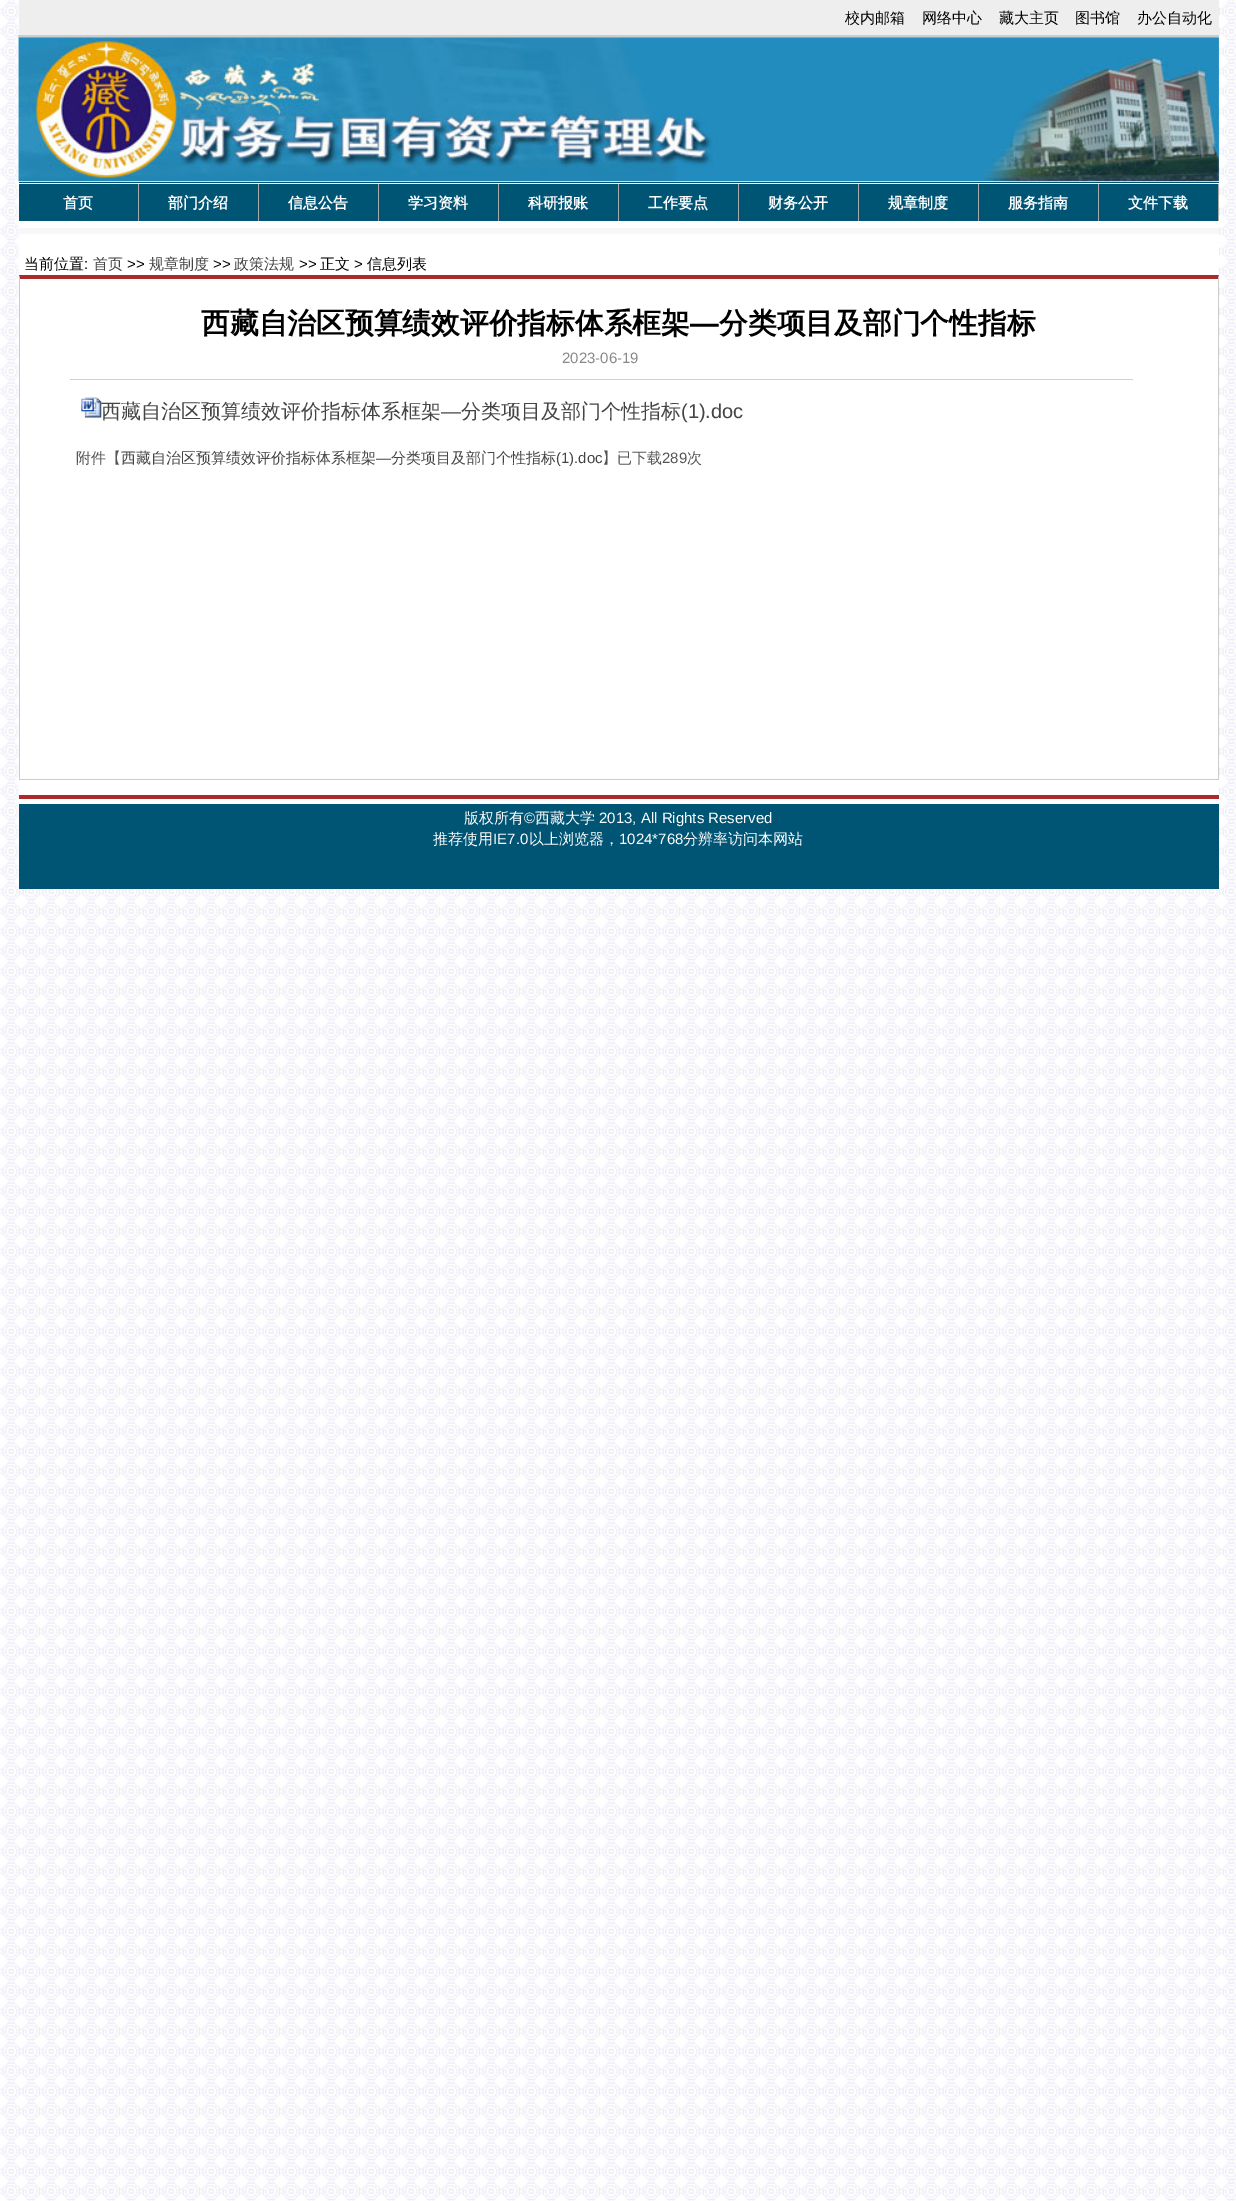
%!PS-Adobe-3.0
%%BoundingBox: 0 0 1236 2201
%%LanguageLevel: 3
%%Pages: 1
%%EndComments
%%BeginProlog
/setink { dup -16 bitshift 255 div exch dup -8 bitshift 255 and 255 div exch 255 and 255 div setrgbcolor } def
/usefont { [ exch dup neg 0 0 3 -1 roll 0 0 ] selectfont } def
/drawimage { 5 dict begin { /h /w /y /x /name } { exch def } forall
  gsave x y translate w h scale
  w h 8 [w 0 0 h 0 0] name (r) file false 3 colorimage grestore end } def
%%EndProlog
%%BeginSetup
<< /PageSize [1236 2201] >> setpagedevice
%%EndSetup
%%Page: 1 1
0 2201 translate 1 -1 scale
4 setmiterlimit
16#FFFFFF setink
0 0 1236 2201 rectfill
(img1.raw) 0 0 1236 2201 drawimage
19 38 1200 766 rectfill
16#EEEEEE setink
19 0 1200 35 rectfill
/WenQuanYiZenHei-Medium 15 usefont
16#000000 setink
[
    [(校内邮箱) 845 23]
    [(网络中心) 922 23]
    [(藏大主页) 999 23]
    [(图书馆) 1075 23]
    [(办公自动化) 1137 23]
] { aload pop moveto show } forall
(img2.raw) 18 35 1201 147 drawimage
16#CCCCCC setink
19 35 1200 3 rectfill
16#FFFFFF setink
19 181 1200 1 rectfill
(img3.raw) 18 37 1201 145 drawimage
[
    [19 182 1200 1 16#005574]
    [138 184 1 37 16#AAAAAA]
    [19 184 119 37 16#005574]
] { aload pop setink rectfill } forall
/WenQuanYiZenHei-Bold 15 usefont
16#FFFFFF setink
63 208 moveto (首页) show
16#AAAAAA setink
258 184 1 37 rectfill
16#005574 setink
139 184 119 37 rectfill
16#FFFFFF setink
168 208 moveto (部门介绍) show
16#AAAAAA setink
378 184 1 37 rectfill
16#005574 setink
259 184 119 37 rectfill
16#FFFFFF setink
288 208 moveto (信息公告) show
16#AAAAAA setink
498 184 1 37 rectfill
16#005574 setink
379 184 119 37 rectfill
16#FFFFFF setink
408 208 moveto (学习资料) show
16#AAAAAA setink
618 184 1 37 rectfill
16#005574 setink
499 184 119 37 rectfill
16#FFFFFF setink
528 208 moveto (科研报账) show
16#AAAAAA setink
738 184 1 37 rectfill
16#005574 setink
619 184 119 37 rectfill
16#FFFFFF setink
648 208 moveto (工作要点) show
16#AAAAAA setink
858 184 1 37 rectfill
16#005574 setink
739 184 119 37 rectfill
16#FFFFFF setink
768 208 moveto (财务公开) show
16#AAAAAA setink
978 184 1 37 rectfill
16#005574 setink
859 184 119 37 rectfill
16#FFFFFF setink
888 208 moveto (规章制度) show
16#AAAAAA setink
1098 184 1 37 rectfill
16#005574 setink
979 184 119 37 rectfill
16#FFFFFF setink
1008 208 moveto (服务指南) show
16#AAAAAA setink
1218 184 1 37 rectfill
16#005574 setink
1099 184 119 37 rectfill
16#FFFFFF setink
1128 208 moveto (文件下载) show
16#F7F7F8 setink
19 228 1200 6 rectfill
/WenQuanYiZenHei-Medium 15 usefont
16#000000 setink
24 269 moveto (当前位置) show
/LiberationSans-Regular 15 usefont
84 269 moveto (:) show
/WenQuanYiZenHei-Medium 15 usefont
16#444444 setink
93 269 moveto (首页) show
/LiberationSans-Regular 15 usefont
16#000000 setink
127 269 moveto (>>) show
/WenQuanYiZenHei-Medium 15 usefont
16#444444 setink
149 269 moveto (规章制度) show
/LiberationSans-Regular 15 usefont
16#000000 setink
213 269 moveto (>>) show
/WenQuanYiZenHei-Medium 15 usefont
16#444444 setink
234 269 moveto (政策法规) show
/LiberationSans-Regular 15 usefont
16#000000 setink
299 269 moveto (>>) show
/WenQuanYiZenHei-Medium 15 usefont
320 269 moveto (正文) show
/LiberationSans-Regular 15 usefont
354 269 moveto (>) show
/WenQuanYiZenHei-Medium 15 usefont
367 269 moveto (信息列表) show
16#AA2B29 setink
19 275 moveto 1219 275 lineto 1218 279 lineto 20 279 lineto closepath fill
16#CCCCCC setink
1219 275 moveto 1219 780 lineto 1218 779 lineto 1218 279 lineto closepath fill
19 779 1200 1 rectfill
19 780 moveto 19 275 lineto 20 279 lineto 20 779 lineto closepath fill
/WenQuanYiZenHei-Bold 28.75 usefont
16#000000 setink
201 333 moveto (西藏自治区预算绩效评价指标体系框架) show
/LiberationSans-Bold 28.75 usefont
690 333 moveto (—) show
/WenQuanYiZenHei-Bold 28.75 usefont
719 333 moveto (分类项目及部门个性指标) show
16#D0D0D0 setink
70 379 1063 1 rectfill
/LiberationSans-Regular 15 usefont
16#888888 setink
562 363 moveto (2023-06-19) show
(img4.raw) 81 397 21 21 drawimage
/WenQuanYiZenHei-Medium 20 usefont
16#444444 setink
101 418 moveto (西藏自治区预算绩效评价指标体系框架) show
/LiberationSans-Regular 20 usefont
441 418 moveto (—) show
/WenQuanYiZenHei-Medium 20 usefont
461 418 moveto (分类项目及部门个性指标) show
/LiberationSans-Regular 20 usefont
681 418 moveto (\(1\).doc) show
/WenQuanYiZenHei-Medium 15 usefont
16#555555 setink
76 463 moveto (附件【) show
16#444444 setink
121 463 moveto (西藏自治区预算绩效评价指标体系框架) show
/LiberationSans-Regular 15 usefont
376 463 moveto (—) show
/WenQuanYiZenHei-Medium 15 usefont
391 463 moveto (分类项目及部门个性指标) show
/LiberationSans-Regular 15 usefont
556 463 moveto (\(1\).doc) show
/WenQuanYiZenHei-Medium 15 usefont
16#555555 setink
602 463 moveto (】已下载) show
/LiberationSans-Regular 15 usefont
662 463 moveto (289) show
/WenQuanYiZenHei-Medium 15 usefont
687 463 moveto (次) show
16#AA2B29 setink
19 795 1200 4 rectfill
16#005574 setink
19 804 1200 85 rectfill
16#FFFFFF setink
464 823 moveto (版权所有) show
/LiberationSans-Regular 15 usefont
524 823 moveto (©) show
/WenQuanYiZenHei-Medium 15 usefont
535 823 moveto (西藏大学) show
/LiberationSans-Regular 15 usefont
599 823 moveto (2013, All Rights Reserved) show
/WenQuanYiZenHei-Medium 15 usefont
433 844 moveto (推荐使用) show
/LiberationSans-Regular 15 usefont
493 844 moveto (IE7.0) show
/WenQuanYiZenHei-Medium 15 usefont
529 844 moveto (以上浏览器，) show
/LiberationSans-Regular 15 usefont
619 844 moveto (1024*768) show
/WenQuanYiZenHei-Medium 15 usefont
683 844 moveto (分辨率访问本网站) show
showpage
%%EOF
